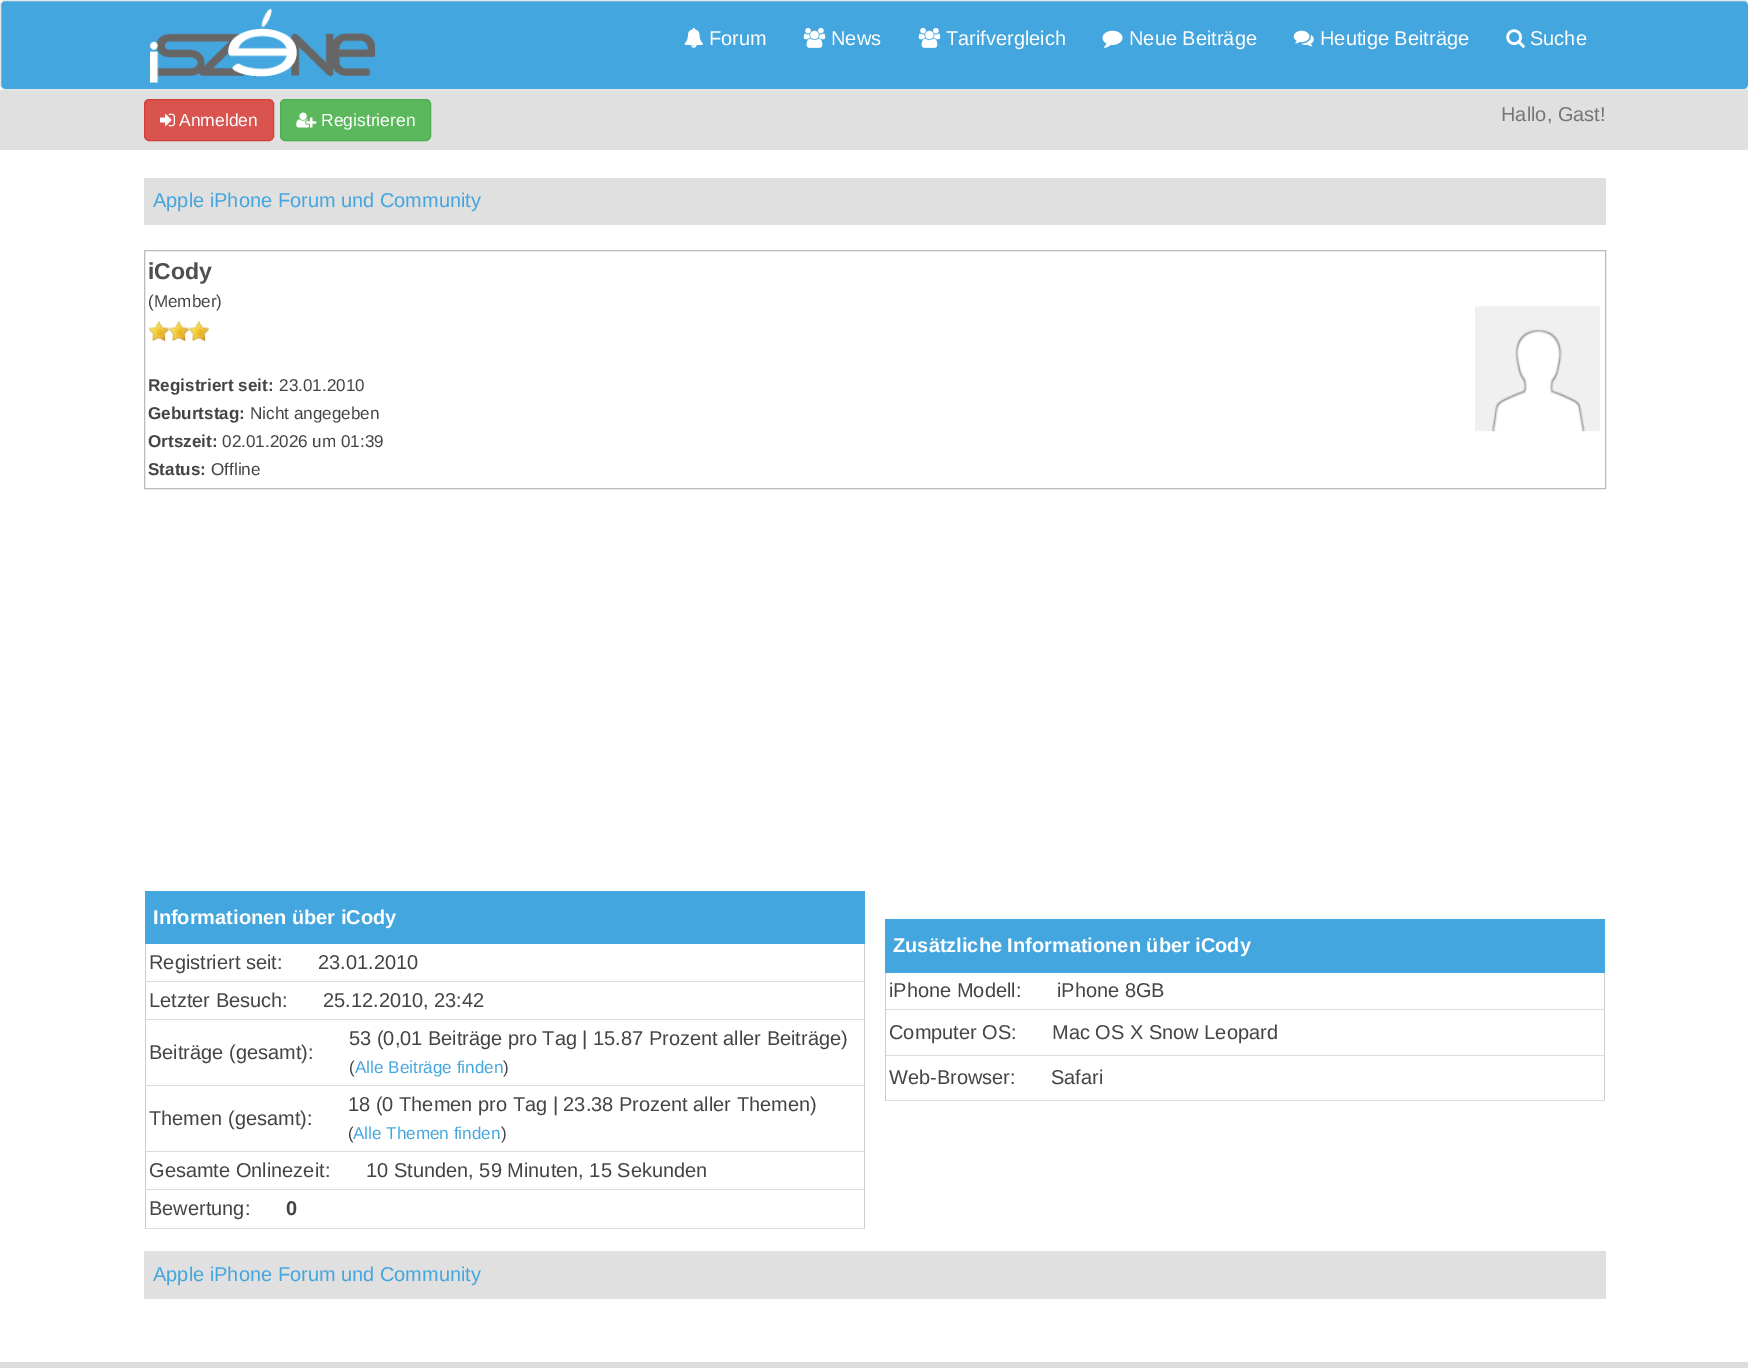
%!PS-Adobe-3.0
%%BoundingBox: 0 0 1748 1368
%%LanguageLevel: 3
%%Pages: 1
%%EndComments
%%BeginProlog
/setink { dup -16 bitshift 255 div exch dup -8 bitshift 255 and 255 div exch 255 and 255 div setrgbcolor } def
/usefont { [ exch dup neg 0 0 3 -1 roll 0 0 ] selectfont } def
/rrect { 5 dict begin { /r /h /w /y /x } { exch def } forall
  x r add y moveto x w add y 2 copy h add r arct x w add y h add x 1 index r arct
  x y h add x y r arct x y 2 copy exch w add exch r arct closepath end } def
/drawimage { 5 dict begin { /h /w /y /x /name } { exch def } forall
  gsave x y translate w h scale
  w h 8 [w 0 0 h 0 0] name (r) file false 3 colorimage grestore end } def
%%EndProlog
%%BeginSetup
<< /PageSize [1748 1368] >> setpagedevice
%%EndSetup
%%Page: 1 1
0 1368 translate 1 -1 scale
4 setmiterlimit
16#FFFFFF setink
0 0 1748 1368 rectfill
16#43A6DF setink
0.5 0.5 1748 89 4.5 rrect gsave fill grestore
16#E7E7E7 setink
stroke
(img1.raw) 150 8 225 75 drawimage
(img2.raw) 684 27 19 21 drawimage
/LiberationSans-Regular 20 usefont
16#FFFFFF setink
709 45 moveto (Forum) show
(img3.raw) 803 27 23 21 drawimage
831 45 moveto (News) show
(img3.raw) 918 27 23 21 drawimage
946 45 moveto (Tarifvergleich) show
(img4.raw) 1102 30 21 18 drawimage
1129 45 moveto (Neue Beiträge) show
(img5.raw) 1293 30 21 17 drawimage
1320 45 moveto (Heutige Beiträge) show
(img6.raw) 1506 29 19 19 drawimage
1530 45 moveto (Suche) show
16#E0E0E0 setink
0 90 1748 60 rectfill
16#D9534F setink
144.5 99.5 129 41 4.5 rrect gsave fill grestore
16#D43F3A setink
stroke
(img7.raw) 160 113 15 14 drawimage
/LiberationSans-Regular 17.5 usefont
16#FFFFFF setink
179 126 moveto (Anmelden) show
16#5CB85C setink
280.5 99.5 150 41 4.5 rrect gsave fill grestore
16#4CAE4C setink
stroke
(img8.raw) 296 112 21 16 drawimage
16#FFFFFF setink
321 126 moveto (Registrieren) show
/LiberationSans-Regular 20 usefont
16#777777 setink
1501 121 moveto (Hallo, Gast!) show
16#E0E0E0 setink
144 178 1462 47 rectfill
16#43A6DF setink
153 207 moveto (Apple iPhone Forum und Community) show
16#BBBBBB setink
144.5 250.5 1461 238 rectstroke
/LiberationSans-Bold 23 usefont
16#4F4F4F setink
148 279 moveto (iCody) show
/LiberationSans-Regular 17.1 usefont
16#444444 setink
148 307 moveto (\(Member\)) show
(img9.raw) 148 321 21 21 drawimage
(img10.raw) 168 321 21 21 drawimage
(img10.raw) 188 321 21 21 drawimage
/LiberationSans-Bold 17.1 usefont
148 391 moveto (Registriert seit:) show
/LiberationSans-Regular 17.1 usefont
279 391 moveto (23.01.2010) show
/LiberationSans-Bold 17.1 usefont
148 419 moveto (Geburtstag:) show
/LiberationSans-Regular 17.1 usefont
250 419 moveto (Nicht angegeben) show
/LiberationSans-Bold 17.1 usefont
148 447 moveto (Ortszeit:) show
/LiberationSans-Regular 17.1 usefont
222 447 moveto (02.01.2026 um 01:39) show
/LiberationSans-Bold 17.1 usefont
148 475 moveto (Status:) show
/LiberationSans-Regular 17.1 usefont
211 475 moveto (Offline) show
(img11.raw) 1475 306 125 126 drawimage
16#43A6DF setink
145 891 720 53 rectfill
/LiberationSans-Bold 20 usefont
16#FFFFFF setink
153 924 moveto (Informationen über iCody) show
[
    [864 944 1 285 16#CCCCCC]
    [145 981 720 1 16#DDDDDD]
    [145 944 1 39 16#CCCCCC]
] { aload pop setink rectfill } forall
/LiberationSans-Regular 20 usefont
16#444444 setink
149 969 moveto (Registriert seit:) show
318 969 moveto (23.01.2010) show
16#DDDDDD setink
145 1019 720 1 rectfill
16#CCCCCC setink
145 983 1 37 rectfill
16#444444 setink
149 1007 moveto (Letzter Besuch:) show
323 1007 moveto (25.12.2010, 23:42) show
16#DDDDDD setink
145 1085 720 1 rectfill
16#CCCCCC setink
145 1020 1 66 rectfill
16#444444 setink
149 1059 moveto (Beiträge \(gesamt\):) show
349 1045 moveto (53 \(0,01 Beiträge pro Tag | 15.87 Prozent aller Beiträge\)) show
/LiberationSans-Regular 17.1 usefont
349 1073 moveto (\() show
16#43A6DF setink
355 1073 moveto (Alle Beiträge finden) show
16#444444 setink
503 1073 moveto (\)) show
16#DDDDDD setink
145 1151 720 1 rectfill
16#CCCCCC setink
145 1086 1 67 rectfill
/LiberationSans-Regular 20 usefont
16#444444 setink
149 1125 moveto (Themen \(gesamt\):) show
348 1111 moveto (18 \(0 Themen pro Tag | 23.38 Prozent aller Themen\)) show
/LiberationSans-Regular 17.1 usefont
348 1139 moveto (\() show
16#43A6DF setink
353 1139 moveto (Alle Themen finden) show
16#444444 setink
501 1139 moveto (\)) show
16#DDDDDD setink
145 1189 720 1 rectfill
16#CCCCCC setink
145 1153 1 37 rectfill
/LiberationSans-Regular 20 usefont
16#444444 setink
149 1177 moveto (Gesamte Onlinezeit:) show
366 1177 moveto (10 Stunden, 59 Minuten, 15 Sekunden) show
16#DDDDDD setink
145 1228 720 1 rectfill
16#CCCCCC setink
145 1190 1 39 rectfill
16#444444 setink
149 1215 moveto (Bewertung:) show
/LiberationSans-Bold 20 usefont
286 1215 moveto (0) show
16#43A6DF setink
885 919 720 54 rectfill
16#FFFFFF setink
893 952 moveto (Zusätzliche Informationen über iCody) show
[
    [1604 973 1 128 16#CCCCCC]
    [885 1009 720 1 16#DDDDDD]
    [885 973 1 37 16#CCCCCC]
] { aload pop setink rectfill } forall
/LiberationSans-Regular 20 usefont
16#444444 setink
889 997 moveto (iPhone Modell:) show
1057 997 moveto (iPhone 8GB) show
16#DDDDDD setink
885 1055 720 1 rectfill
16#CCCCCC setink
885 1010 1 46 rectfill
16#444444 setink
889 1039 moveto (Computer OS:) show
1052 1039 moveto (Mac OS X Snow Leopard) show
16#DDDDDD setink
885 1100 720 1 rectfill
16#CCCCCC setink
885 1056 1 45 rectfill
16#444444 setink
889 1084 moveto (Web-Browser:) show
1051 1084 moveto (Safari) show
16#E0E0E0 setink
144 1251 1462 48 rectfill
16#43A6DF setink
153 1281 moveto (Apple iPhone Forum und Community) show
16#DDDDDD setink
0 1362 1748 6 rectfill
showpage
%%EOF
